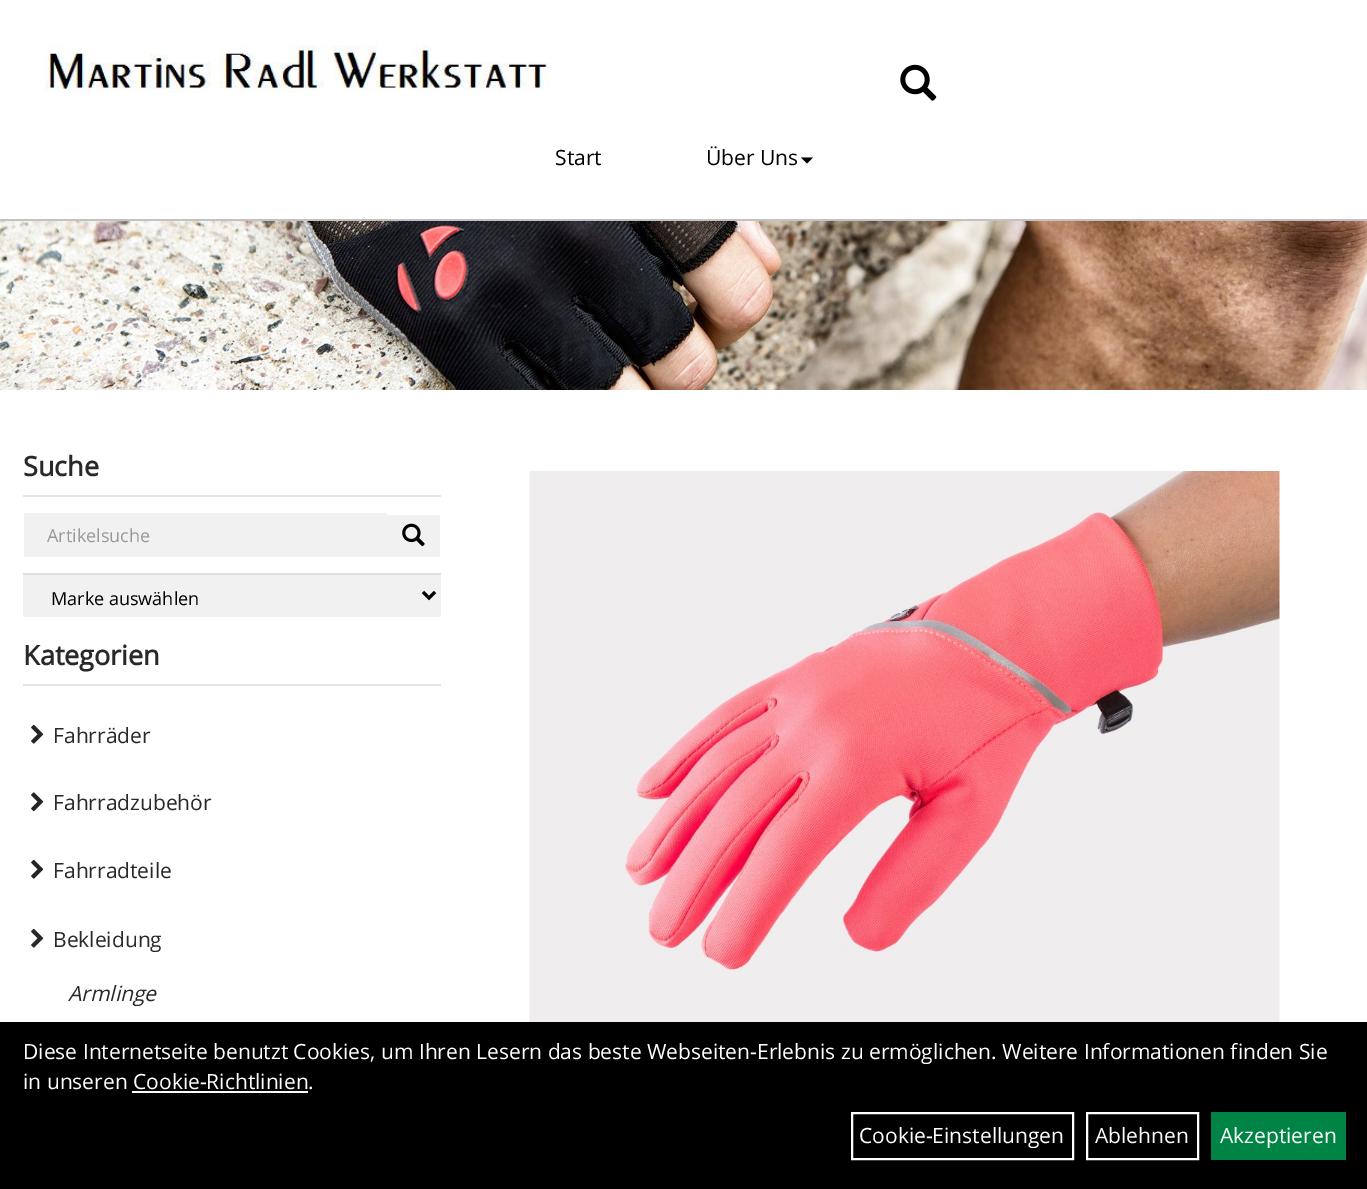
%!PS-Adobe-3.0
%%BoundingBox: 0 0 1367 1189
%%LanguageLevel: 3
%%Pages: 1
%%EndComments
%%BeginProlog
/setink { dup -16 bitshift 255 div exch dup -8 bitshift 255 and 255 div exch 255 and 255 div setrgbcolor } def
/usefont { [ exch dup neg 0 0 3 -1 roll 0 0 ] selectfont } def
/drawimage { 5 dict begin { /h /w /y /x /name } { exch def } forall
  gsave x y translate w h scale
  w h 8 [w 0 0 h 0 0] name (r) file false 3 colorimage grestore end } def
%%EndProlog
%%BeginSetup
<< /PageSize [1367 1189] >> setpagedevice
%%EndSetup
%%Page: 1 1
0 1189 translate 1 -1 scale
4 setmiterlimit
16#FFFFFF setink
0 0 1367 1189 rectfill
16#C2C2C2 setink
0 219 1367 2 rectfill
(img1.raw) 45 45 506 48 drawimage
(img2.raw) 900 64 37 37 drawimage
/OpenSans-Regular 21 usefont
16#000000 setink
555 165 moveto (Start) show
706 165 moveto (Über Uns) show
801 157.5 moveto 813 157.5 lineto 807 163.5 lineto closepath fill
(img3.raw) 0 221 1367 169 drawimage
16#E6E6E6 setink
23 495 418 2 rectfill
/OpenSans-Bold 27 usefont
16#292929 setink
23 476 moveto (Suche) show
16#F1F1F1 setink
24 513 363 44 rectfill
/OpenSans-Regular 18 usefont
16#999999 setink
47 542 moveto (Artikelsuche) show
16#F1F1F1 setink
387 515 53 42 rectfill
(img4.raw) 402 523 23 24 drawimage
23 575 418 42 rectfill
16#DFDFDF setink
23 573 418 2 rectfill
16#000000 setink
3 setlinewidth
423 592 moveto 429 598 lineto 435 592 lineto stroke
51 605 moveto (Marke auswählen) show
16#E6E6E6 setink
23 684 418 2 rectfill
/OpenSans-Bold 27 usefont
16#292929 setink
23 665 moveto (Kategorien) show
(img5.raw) 31 724 13 20 drawimage
/OpenSans-Regular 21 usefont
53 743 moveto (Fahrräder) show
(img6.raw) 31 792 13 20 drawimage
53 810 moveto (Fahrradzubehör) show
(img5.raw) 31 859 13 20 drawimage
53 878 moveto (Fahrradteile) show
(img7.raw) 31 928 13 20 drawimage
53 947 moveto (Bekleidung) show
/OpenSans-Italic 21 usefont
68 1001 moveto (Armlinge) show
(img8.raw) 529 471 751 551 drawimage
16#000000 setink
0 1022 1367 167 rectfill
/OpenSans-Regular 21 usefont
16#FFFFFF setink
23 1059 moveto (Diese Internetseite benutzt Cookies, um Ihren Lesern das beste Webseiten-Erlebnis zu ermöglichen. Weitere Informationen finden Sie) show
23 1089 moveto (in unseren Cookie-Richtlinien.) show
132 1091 176 2 rectfill
2 setlinewidth
852 1113 221 46 rectstroke
859 1143 moveto (Cookie-Einstellungen) show
1087 1113 111 46 rectstroke
1095 1143 moveto (Ablehnen) show
16#008446 setink
1211 1112 135 48 rectfill
16#FFFFFF setink
1220 1143 moveto (Akzeptieren) show
showpage
%%EOF
